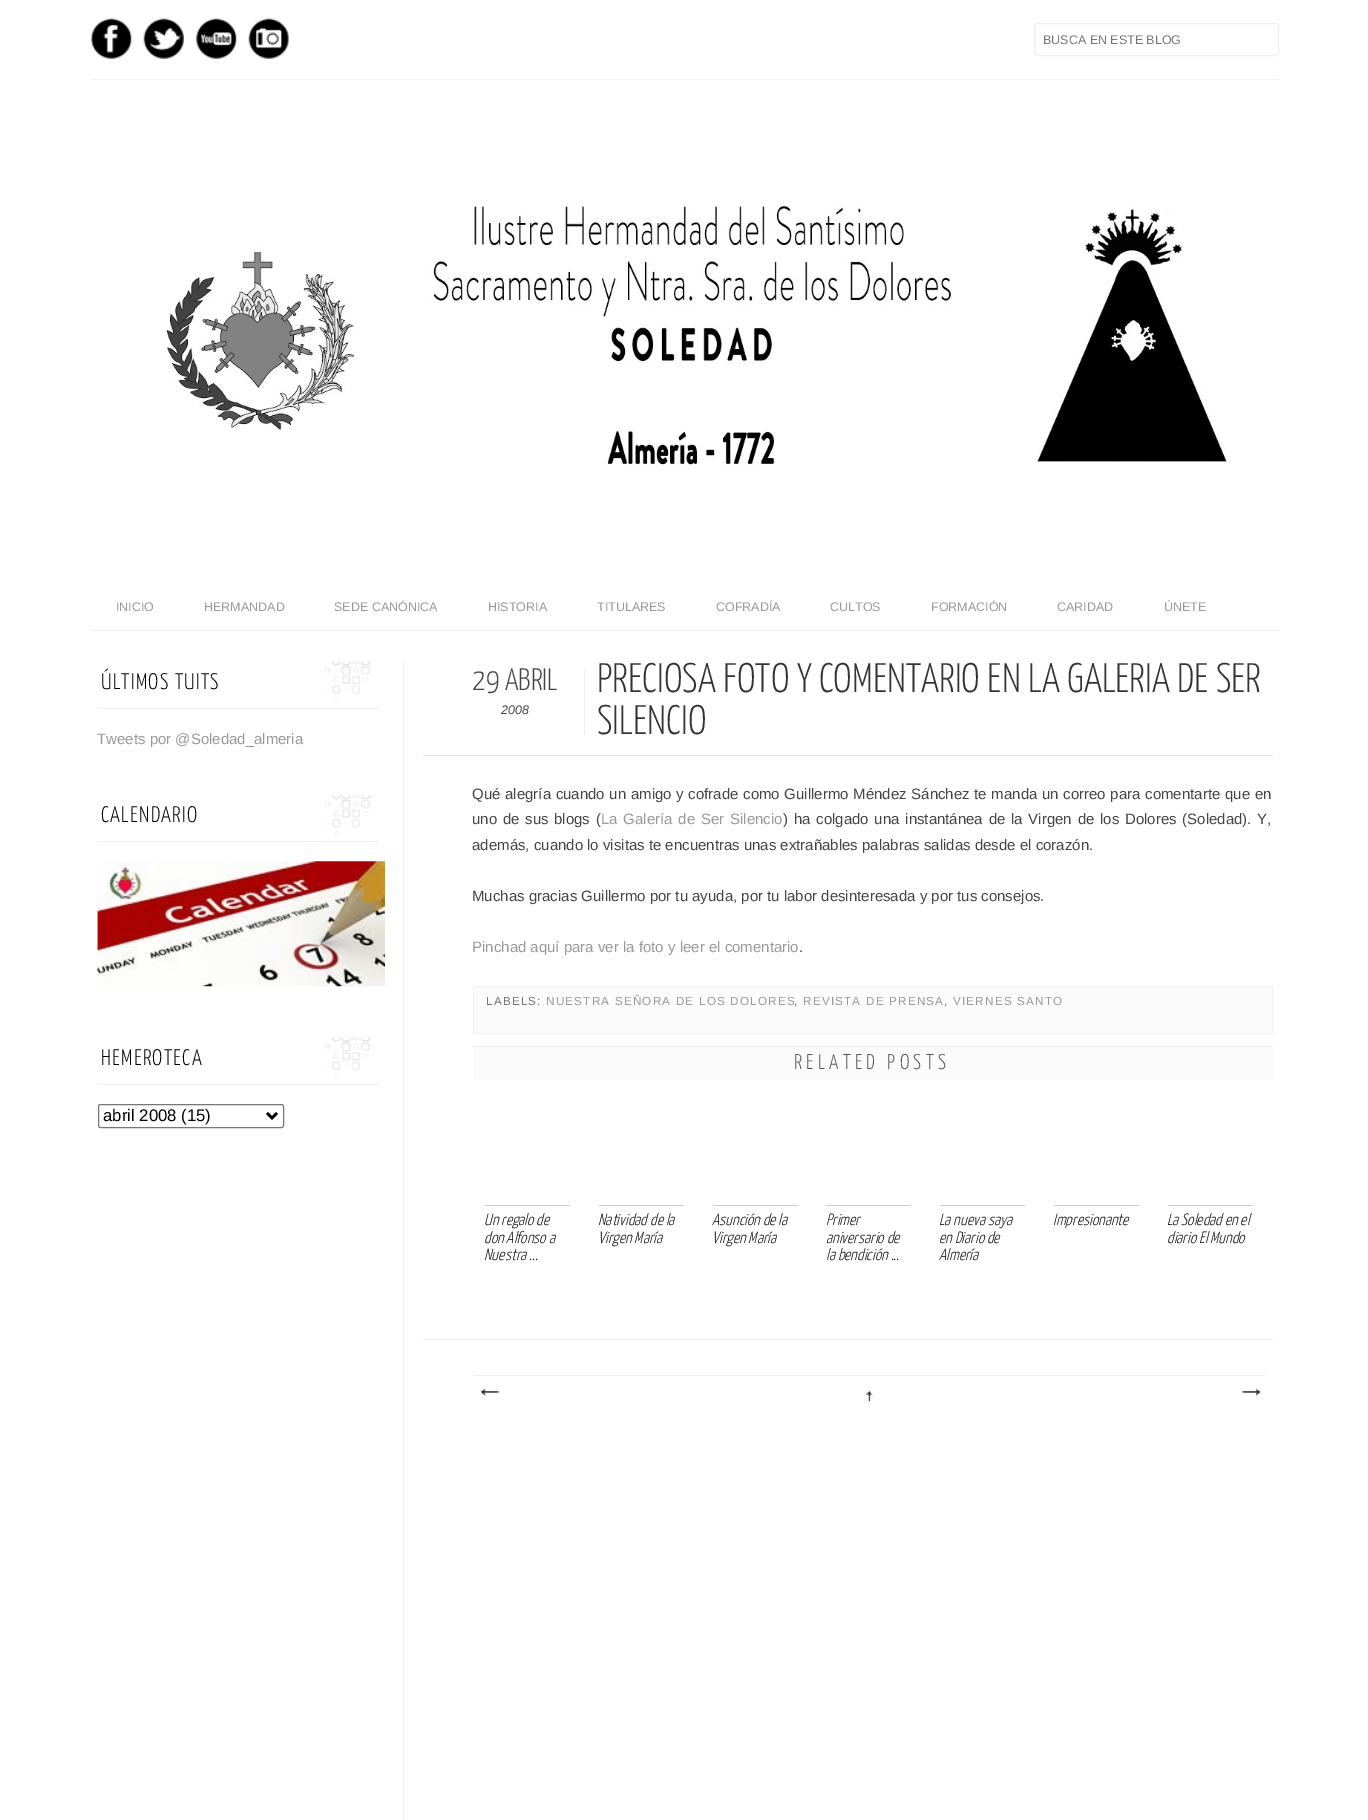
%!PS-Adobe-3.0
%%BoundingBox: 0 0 1368 1820
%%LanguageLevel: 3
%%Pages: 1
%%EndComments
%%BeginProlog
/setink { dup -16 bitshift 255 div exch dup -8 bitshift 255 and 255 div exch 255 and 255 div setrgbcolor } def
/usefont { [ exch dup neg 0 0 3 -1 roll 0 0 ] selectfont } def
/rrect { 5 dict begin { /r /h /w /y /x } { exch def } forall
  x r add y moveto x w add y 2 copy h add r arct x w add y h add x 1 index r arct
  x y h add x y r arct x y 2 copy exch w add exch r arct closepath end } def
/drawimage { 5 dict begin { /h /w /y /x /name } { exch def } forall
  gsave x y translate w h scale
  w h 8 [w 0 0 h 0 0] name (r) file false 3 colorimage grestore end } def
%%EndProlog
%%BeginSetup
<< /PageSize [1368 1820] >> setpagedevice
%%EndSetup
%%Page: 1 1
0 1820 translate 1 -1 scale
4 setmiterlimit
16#FFFFFF setink
0 0 1368 1820 rectfill
16#F2F2F2 setink
91 79 1188 1 rectfill
(img1.raw) 91 18 41 41 drawimage
(img2.raw) 143 18 41 41 drawimage
(img3.raw) 196 18 41 41 drawimage
(img4.raw) 248 18 41 41 drawimage
16#EEEEEE setink
1034.5 23.5 244 32 3.5 rrect stroke
/LiberationSans-Regular 12.5 usefont
16#757575 setink
1043 44 moveto (BUSCA EN ESTE BLOG) show
(img5.raw) 166 205 1061 261 drawimage
16#EEEEEE setink
91 630 1188 1 rectfill
16#999999 setink
[
    [(INICIO) 116 611]
    [(HERMANDAD) 204 611]
    [(SEDE CANÓNICA) 334 611]
    [(HISTORIA) 488 611]
    [(TITULARES) 597 611]
    [(COFRADÍA) 716 611]
    [(CULTOS) 830 611]
    [(FORMACIÓN) 931 611]
    [(CARIDAD) 1057 611]
    [(ÚNETE) 1164 611]
] { aload pop moveto show } forall
(img6.raw) 325 661 46 40 drawimage
16#EEEEEE setink
98 708 281 1 rectfill
/YanoneKaffeesatz-ExtraLight 22.5 usefont
16#000000 setink
101 689 moveto 1.25 0 (ÚLTIMOS TUITS) ashow
/LiberationSans-Regular 15 usefont
16#999999 setink
97 744 moveto (Tweets por @Soledad_almeria) show
(img7.raw) 325 795 46 40 drawimage
16#EEEEEE setink
98 841 281 1 rectfill
/YanoneKaffeesatz-ExtraLight 22.5 usefont
16#000000 setink
101 822 moveto 1.25 0 (CALENDARIO) ashow
(img8.raw) 97 861 288 126 drawimage
(img9.raw) 325 1037 46 41 drawimage
16#EEEEEE setink
98 1084 281 1 rectfill
16#000000 setink
101 1065 moveto 1.25 0 (HEMEROTECA) ashow
16#767676 setink
98.5 1104.5 185 23 2 rrect stroke
16#000000 setink
2.5 setlinewidth
267 1113 moveto 272 1118 lineto 277 1113 lineto stroke
/LiberationSans-Regular 16.75 usefont
103 1121 moveto (abril 2008 \(15\)) show
[
    [403 661 1 1159 16#EEEEEE]
    [423 1339 850 1 16#EEEEEE]
    [423 755 850 1 16#DDDDDD]
    [584 668 1 66 16#EEEEEE]
] { aload pop setink rectfill } forall
/YanoneKaffeesatz-ExtraLight 31 usefont
16#444444 setink
472 690 moveto (29 ABRIL) show
/LiberationSans-Italic 12.5 usefont
501 714 moveto (2008) show
gsave
404 661 869 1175 rectclip
/YanoneKaffeesatz-ExtraLight 41.25 usefont
16#333333 setink
597 692 moveto (PRECIOSA FOTO Y COMENTARIO EN LA GALERÍA DE SER) show
grestore
/YanoneKaffeesatz-ExtraLight 41.25 usefont
16#333333 setink
597 734 moveto (SILENCIO) show
/LiberationSans-Regular 15 usefont
16#444444 setink
472 799 moveto 0.5 0 32 (Qué alegría cuando un amigo y cofrade como Guillermo Méndez Sánchez te manda un correo para comentarte que en) widthshow
472 824 moveto 1.5 0 32 (uno de sus blogs \() widthshow
16#999999 setink
601 824 moveto 1.6 0 32 (La Galería de Ser Silencio) widthshow
16#444444 setink
783 824 moveto 1.6 0 32 (\) ha colgado una instantánea de la Virgen de los Dolores \(Soledad\). Y,) widthshow
472 850 moveto (además, cuando lo visitas te encuentras unas extrañables palabras salidas desde el corazón.) show
472 901 moveto (Muchas gracias Guillermo por tu ayuda, por tu labor desinteresada y por tus consejos.) show
16#999999 setink
472 952 moveto (Pinchad aquí para ver la foto y leer el comentario) show
16#444444 setink
799 952 moveto (.) show
16#FBFBFB setink
473.5 986.5 moveto 1272.5 986.5 lineto 1272.5 1033.5 lineto 473.5 1033.5 lineto closepath gsave fill grestore
16#F2F2F2 setink
1 setlinewidth
stroke
/LiberationSans-Regular 11.7 usefont
16#757575 setink
486 1005 moveto 1.2 0 (LABELS:) ashow
16#999999 setink
546 1005 moveto 1.2 0 (NUESTRA SEÑORA DE LOS DOLORES) ashow
16#757575 setink
794 1005 moveto 1.2 0 (,) ashow
16#999999 setink
803 1005 moveto 1.2 0 (REVISTA DE PRENSA) ashow
16#757575 setink
944 1005 moveto 1.2 0 (,) ashow
16#999999 setink
953 1005 moveto 1.2 0 (VIERNES SANTO) ashow
16#FBFBFB setink
473 1047 800 33 rectfill
16#EEEEEE setink
473 1046 800 1 rectfill
/YanoneKaffeesatz-ExtraLight 21.25 usefont
16#555555 setink
794 1069 moveto 4.25 0 (RELATED POSTS) ashow
16#CCCCCC setink
485 1205 85 1 rectfill
/YanoneKaffeesatz-ExtraLightItalic 16.25 usefont
16#000000 setink
[
    [(Un regalo de) 484 1225]
    [(don Alfonso a) 484 1243]
    [(Nuestra ...) 484 1260]
] { aload pop moveto show } forall
16#CCCCCC setink
599 1205 85 1 rectfill
16#000000 setink
598 1225 moveto (Natividad de la) show
598 1243 moveto (Virgen María) show
16#CCCCCC setink
713 1205 85 1 rectfill
16#000000 setink
712 1225 moveto (Asunción de la) show
712 1243 moveto (Virgen María) show
16#CCCCCC setink
826 1205 85 1 rectfill
16#000000 setink
[
    [(Primer) 826 1225]
    [(aniversario de) 826 1243]
    [(la bendición ...) 826 1260]
] { aload pop moveto show } forall
16#CCCCCC setink
940 1205 85 1 rectfill
16#000000 setink
[
    [(La nueva saya) 939 1225]
    [(en Diario de) 939 1243]
    [(Almería) 939 1260]
] { aload pop moveto show } forall
16#CCCCCC setink
1054 1205 85 1 rectfill
16#000000 setink
1053 1225 moveto (Impresionante) show
16#CCCCCC setink
1168 1205 85 1 rectfill
16#000000 setink
1167 1225 moveto (La Soledad en el) show
1167 1243 moveto (diario El Mundo) show
16#EEEEEE setink
473 1375 793 1 rectfill
(img10.raw) 481 1388 18 8 drawimage
(img11.raw) 481 1388 18 8 drawimage
(img12.raw) 866 1391 7 11 drawimage
(img13.raw) 1242 1388 19 8 drawimage
(img14.raw) 1242 1388 19 8 drawimage
showpage
%%EOF
